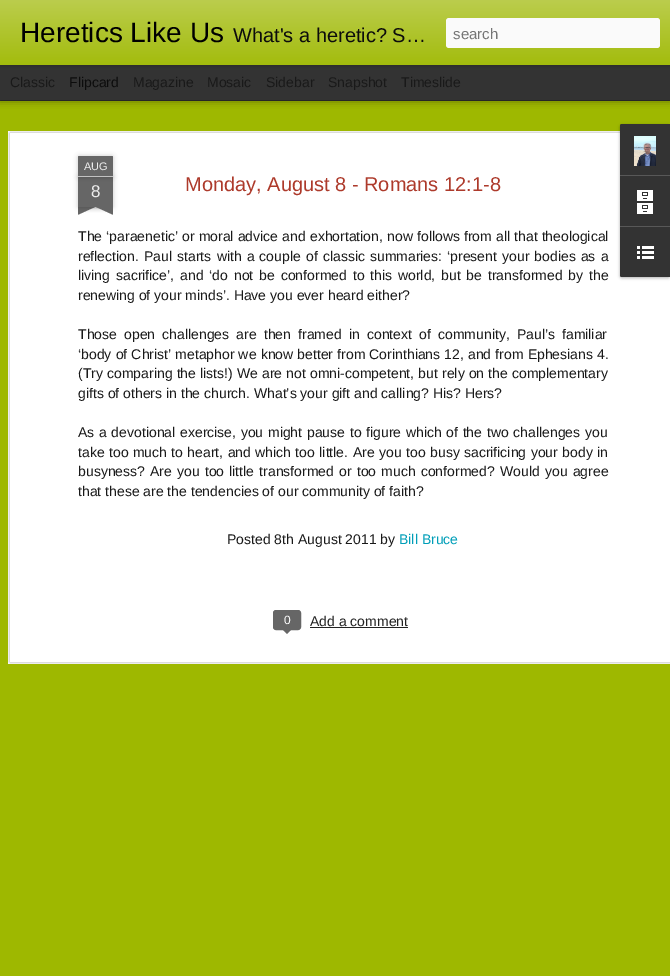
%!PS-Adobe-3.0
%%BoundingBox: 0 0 670 976
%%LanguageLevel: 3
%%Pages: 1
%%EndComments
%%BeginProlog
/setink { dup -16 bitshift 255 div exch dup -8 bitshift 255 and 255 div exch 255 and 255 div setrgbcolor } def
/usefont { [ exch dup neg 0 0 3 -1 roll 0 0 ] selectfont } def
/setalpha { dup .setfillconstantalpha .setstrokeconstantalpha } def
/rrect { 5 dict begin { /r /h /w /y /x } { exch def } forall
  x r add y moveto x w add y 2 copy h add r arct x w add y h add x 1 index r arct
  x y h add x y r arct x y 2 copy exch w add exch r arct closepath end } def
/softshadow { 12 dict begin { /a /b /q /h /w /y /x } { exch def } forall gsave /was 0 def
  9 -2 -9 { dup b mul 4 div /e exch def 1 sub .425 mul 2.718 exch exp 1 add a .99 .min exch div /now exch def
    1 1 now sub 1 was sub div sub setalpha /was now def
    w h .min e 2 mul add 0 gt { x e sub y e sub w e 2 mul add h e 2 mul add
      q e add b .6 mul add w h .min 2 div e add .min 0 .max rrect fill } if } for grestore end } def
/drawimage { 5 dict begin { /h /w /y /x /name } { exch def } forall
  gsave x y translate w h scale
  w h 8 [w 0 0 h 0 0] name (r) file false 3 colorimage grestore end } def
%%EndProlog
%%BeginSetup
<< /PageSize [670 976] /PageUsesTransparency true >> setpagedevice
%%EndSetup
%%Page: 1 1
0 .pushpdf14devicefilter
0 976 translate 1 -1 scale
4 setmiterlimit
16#333333 setink
0 0 670 976 rectfill
16#9EB800 setink
0 101 670 875 rectfill
16#000000 setink
0 65 670 35 0 4 0.5 softshadow
16#333333 setink
0 65 670 35 rectfill
16#000000 setink
0 0 670 65 0 2.5 0.3 softshadow
gsave 0 0 moveto 670 0 lineto 670 65 lineto 0 65 lineto closepath clip newpath
<< /ShadingType 2 /ColorSpace /DeviceRGB /Coords [0 0 0 65] /Extend [true true] /Function << /FunctionType 2 /Domain [0 1] /C0 [0.733 0.804 0.302] /C1 [0.639 0.737 0.051] /N 1 >> >> shfill grestore
/LiberationSans-Regular 28 usefont
20 42 moveto (Heretics Like Us) show
/LiberationSans-Regular 20 usefont
16#0C0C0C setink
233 42 moveto (What's a heretic? S…) show
16#FAFAFA setink
446 18 214 30 3 rrect fill
/LiberationSans-Regular 15 usefont
16#757575 setink
453 39 moveto (search) show
/LiberationSans-Regular 14 usefont
16#191919 setink
10 87 moveto (Classic) show
16#0C0C0C setink
69 87 moveto (Flipcard) show
16#191919 setink
[
    [(Magazine) 133 87]
    [(Mosaic) 207 87]
    [(Sidebar) 266 87]
    [(Snapshot) 328 87]
    [(Timeslide) 401 87]
] { aload pop moveto show } forall
16#FFFFFF setink
8 131 662 533 rectfill
(img1.raw) 8 131 662 533 drawimage
16#000000 setink
78 177 35 30 0 2.5 0.2 softshadow
16#666666 setink
78 177 35 30 rectfill
16#000000 setink
78 156 35 21 1 2.5 0.2 softshadow
16#666666 setink
79 156 moveto 112 156 lineto 112.5 156 113 156.5 113 157 curveto 113 177 lineto 78 177 lineto 78 157 lineto 78 156.5 78.5 156 79 156 curveto closepath fill
16#C2C2C2 setink
78 176 35 1 rectfill
/LiberationSans-Regular 11 usefont
16#EEEEEE setink
84 170 moveto (AUG) show
/LiberationSans-Regular 17 usefont
91 197 moveto (8) show
gsave
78 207 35 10 rectclip
16#000000 setink
69 197 50 10 0 2.5 0.2 softshadow
grestore
gsave
78 207 35 10 rectclip
16#666666 setink
69 208 moveto 115 187 lineto 119 196 lineto 73 217 lineto closepath fill
grestore
gsave
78 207 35 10 rectclip
16#000000 setink
72 197 50 10 0 2.5 0.2 softshadow
grestore
gsave
78 207 35 10 rectclip
16#666666 setink
76 187 moveto 122 208 lineto 118 217 lineto 72 196 lineto closepath fill
grestore
/LiberationSans-Regular 20 usefont
16#AD3A2B setink
185 191 moveto (Monday, August 8 - Romans 12:1-8) show
/LiberationSans-Regular 14 usefont
16#191919 setink
78 241 moveto 0.25 0 32 (The ‘paraenetic’ or moral advice and exhortation, now follows from all that theological) widthshow
78 261 moveto (reflection.) show
144 261 moveto 1.25 0 32 (Paul starts with a couple of classic summaries:) widthshow
447 261 moveto 1.25 0 32 (‘present your bodies as a) widthshow
78 280 moveto 2 0 32 (living sacrifice’, and ‘do not be conformed to this world, but be transformed by the) widthshow
78 300 moveto (renewing of your minds’. Have you ever heard either?) show
78 339 moveto 3.25 0 32 (Those open challenges are then framed in context of community, Paul’s familiar) widthshow
78 359 moveto 0.25 0 32 (‘body of Christ’ metaphor we know better from Corinthians 12, and from Ephesians 4.) widthshow
78 378 moveto 0.25 0 32 (\(Try comparing the lists!\) We are not omni-competent, but rely on the complementary) widthshow
78 398 moveto (gifts of others in the church. What’s your gift and calling? His? Hers?) show
78 437 moveto 0.8 0 32 (As a devotional exercise, you might pause to figure which of the two challenges you) widthshow
78 457 moveto 0.5 0 32 (take too much to heart, and which too little.) widthshow
353 457 moveto 0.5 0 32 (Are you too busy sacrificing your body in) widthshow
78 476 moveto (busyness?) show
150 476 moveto 1.25 0 32 (Are you too little transformed or too much conformed?) widthshow
500 476 moveto 1.25 0 32 (Would you agree) widthshow
78 496 moveto (that these are the tendencies of our community of faith?) show
227 544 moveto (Posted 8th August 2011 by) show
16#009EB8 setink
399 544 moveto (Bill Bruce) show
16#666666 setink
273.5 610.5 27 19 2.5 rrect gsave fill grestore
stroke
/LiberationSans-Regular 12 usefont
16#FFFFFF setink
284 624 moveto (0) show
16#666666 setink
282 629 moveto 292 629 lineto 287 634 lineto closepath fill
/LiberationSans-Regular 14 usefont
16#222222 setink
310 626 moveto (Add a comment) show
310 627 98 1 rectfill
16#000000 setink
620 125 50 153 2 1.5 0.3 softshadow
16#333333 setink
622 124 moveto 670 124 lineto 670 277 lineto 622 277 lineto 621 277 620 276 620 275 curveto 620 126 lineto 620 125 621 124 622 124 curveto closepath fill
622 124 moveto 670 124 lineto 670 175 lineto 620 175 lineto 620 126 lineto 620 125 621 124 622 124 curveto closepath fill
(img2.raw) 634 136 22 30 drawimage
16#585858 setink
620 175 50 1 rectfill
(img3.raw) 637 190 16 24 drawimage
16#333333 setink
620 226 moveto 670 226 lineto 670 277 lineto 622 277 lineto 621 277 620 276 620 275 curveto closepath fill
16#585858 setink
620 226 50 1 rectfill
(img4.raw) 637 246 17 13 drawimage
.poppdf14devicefilter showpage
%%EOF
